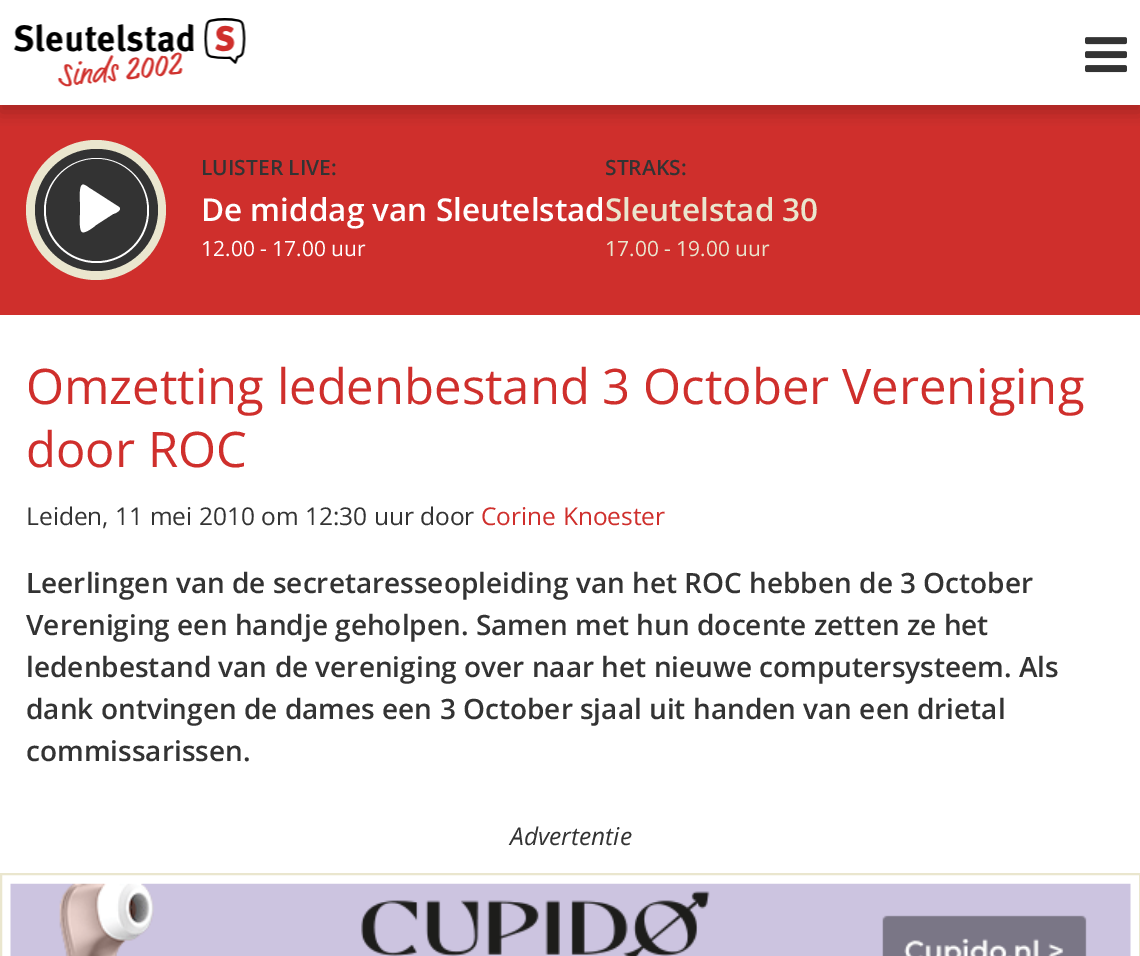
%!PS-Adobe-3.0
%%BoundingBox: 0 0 1140 956
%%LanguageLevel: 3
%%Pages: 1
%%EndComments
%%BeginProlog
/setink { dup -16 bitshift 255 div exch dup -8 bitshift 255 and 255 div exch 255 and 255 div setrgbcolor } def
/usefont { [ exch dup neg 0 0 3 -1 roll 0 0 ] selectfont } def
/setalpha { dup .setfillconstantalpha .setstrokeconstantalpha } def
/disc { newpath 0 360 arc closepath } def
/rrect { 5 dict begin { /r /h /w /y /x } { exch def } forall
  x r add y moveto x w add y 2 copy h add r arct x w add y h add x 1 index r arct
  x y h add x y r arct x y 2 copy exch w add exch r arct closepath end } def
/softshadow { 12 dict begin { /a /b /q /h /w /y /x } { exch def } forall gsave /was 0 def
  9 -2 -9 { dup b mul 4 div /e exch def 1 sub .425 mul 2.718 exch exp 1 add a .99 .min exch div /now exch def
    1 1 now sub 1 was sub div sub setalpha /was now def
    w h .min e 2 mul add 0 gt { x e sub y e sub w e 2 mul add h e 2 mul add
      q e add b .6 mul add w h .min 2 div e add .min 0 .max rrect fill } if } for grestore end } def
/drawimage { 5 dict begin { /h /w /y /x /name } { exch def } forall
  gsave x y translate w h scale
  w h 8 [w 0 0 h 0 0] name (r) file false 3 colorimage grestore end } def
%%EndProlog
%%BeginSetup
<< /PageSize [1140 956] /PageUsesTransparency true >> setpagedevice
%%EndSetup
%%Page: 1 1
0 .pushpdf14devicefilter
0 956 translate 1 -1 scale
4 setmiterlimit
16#FFFFFF setink
0 0 1140 956 rectfill
16#CF2F2C setink
0 105 1140 210 rectfill
gsave
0 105 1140 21 rectclip
16#430B0A setink
0 7 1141 105 0 9 0.3 softshadow
grestore
(img1.raw) 13 18 233 69 drawimage
(img2.raw) 1085 37 42 36 drawimage
16#EAE6CE setink
96 210 70 disc fill
16#333333 setink
35 149 123 122 61 rrect fill
16#FFFFFF setink
96.5 210.5 52.5 disc fill
16#333333 setink
46 159 101 102 50.5 rrect fill
16#FFFFFF setink
119 207 moveto 123 210 114 214 113 214 curveto 96 225 lineto 95 226 85 234 82 232 curveto 79 230 80 217 80 215 curveto 80 202 lineto 80 200 79 187 82 185 curveto 84 183 90 189 91 189 curveto closepath fill
/OpenSans-SemiBold 21 usefont
16#333333 setink
201 175 moveto (LUISTER LIVE:) show
/OpenSans-SemiBold 31.5 usefont
16#FFFFFF setink
201 221 moveto (De middag van Sleutelstad) show
/OpenSans-Regular 21 usefont
201 256 moveto (12.00 - 17.00 uur) show
/OpenSans-SemiBold 21 usefont
16#333333 setink
605 175 moveto (STRAKS:) show
/OpenSans-SemiBold 31.5 usefont
16#EAE6CE setink
605 221 moveto (Sleutelstad 30) show
/OpenSans-Regular 21 usefont
605 256 moveto (17.00 - 19.00 uur) show
/OpenSans-Regular 49 usefont
16#CF2F2C setink
26 404 moveto (Omzetting ledenbestand 3 October Vereniging) show
26 467 moveto (door ROC) show
/OpenSans-Regular 24.5 usefont
16#333333 setink
26 525 moveto (Leiden, 11 mei 2010 om 12:30 uur door) show
16#CF2F2C setink
481 525 moveto (Corine Knoester) show
/OpenSans-SemiBold 28 usefont
16#333333 setink
[
    [(Leerlingen van de secretaresseopleiding van het ROC hebben de 3 October) 26 593]
    [(Vereniging een handje geholpen. Samen met hun docente zetten ze het) 26 635]
    [(ledenbestand van de vereniging over naar het nieuwe computersysteem. Als) 26 677]
    [(dank ontvingen de dames een 3 October sjaal uit handen van een drietal) 26 719]
    [(commissarissen.) 26 761]
] { aload pop moveto show } forall
/OpenSans-Italic 24.5 usefont
510 845 moveto (Advertentie) show
16#EAE6CE setink
2 setlinewidth
1 874 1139 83 rectstroke
(img3.raw) 10 883 1121 73 drawimage
.poppdf14devicefilter showpage
%%EOF
